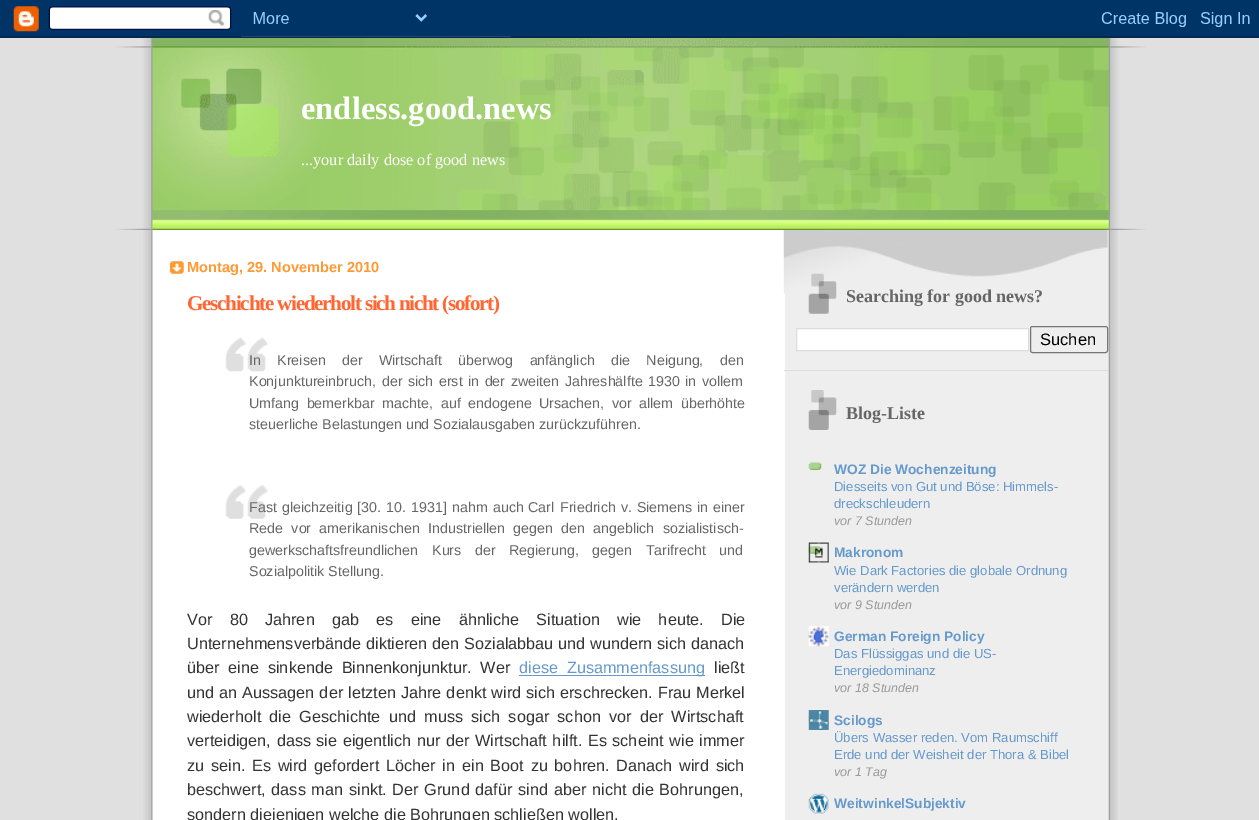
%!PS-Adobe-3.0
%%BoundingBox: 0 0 1259 820
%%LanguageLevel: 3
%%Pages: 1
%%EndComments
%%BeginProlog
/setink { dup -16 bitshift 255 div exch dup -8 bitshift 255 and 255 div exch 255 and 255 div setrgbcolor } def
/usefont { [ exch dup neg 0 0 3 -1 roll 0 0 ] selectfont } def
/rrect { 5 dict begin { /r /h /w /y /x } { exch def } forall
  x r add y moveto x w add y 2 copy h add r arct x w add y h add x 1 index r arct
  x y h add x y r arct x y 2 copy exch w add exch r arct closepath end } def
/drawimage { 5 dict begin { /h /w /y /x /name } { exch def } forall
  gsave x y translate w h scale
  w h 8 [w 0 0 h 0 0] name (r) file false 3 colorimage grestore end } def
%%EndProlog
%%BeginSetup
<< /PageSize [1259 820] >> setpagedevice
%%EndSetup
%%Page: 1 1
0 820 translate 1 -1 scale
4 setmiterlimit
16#E0E0E0 setink
0 0 1259 820 rectfill
(img1.raw) 0 0 1259 38 drawimage
(img2.raw) 143 230 975 590 drawimage
(img3.raw) 116 38 1030 191 drawimage
(img4.raw) 115 210 1031 20 drawimage
/LiberationSerif-Bold 32.5 usefont
16#FFFFFF setink
301 119 moveto (endless.good.news) show
/LiberationSerif-Regular 16.25 usefont
301 165 moveto (...your daily dose of good news) show
(img5.raw) 170 261 14 13 drawimage
/LiberationSans-Bold 14.6 usefont
16#FF9933 setink
187 272 moveto (Montag, 29. November 2010) show
/LiberationSerif-Bold 21.1 usefont
16#FF6633 setink
187 310 moveto -1.25 0 (Geschichte wiederholt sich nicht \(sofort\)) ashow
(img6.raw) 225 337 43 35 drawimage
/LiberationSans-Regular 14.3 usefont
16#666666 setink
249 365 moveto 12.25 0 32 (In Kreisen der Wirtschaft überwog anfänglich die Neigung, den) widthshow
249 386 moveto 1.5 0 32 (Konjunktureinbruch, der sich erst in der zweiten Jahreshälfte 1930 in vollem) widthshow
249 408 moveto 3.5 0 32 (Umfang bemerkbar machte, auf endogene Ursachen, vor allem überhöhte) widthshow
249 429 moveto (steuerliche Belastungen und Sozialausgaben zurückzuführen.) show
(img7.raw) 225 485 43 34 drawimage
249 512 moveto 1 0 32 (Fast gleichzeitig [30. 10. 1931] nahm auch) widthshow
528 512 moveto (Carl) show
560 512 moveto 1 0 32 (Friedrich v. Siemens in einer) widthshow
249 533 moveto 4.25 0 32 (Rede vor amerikanischen Industriellen gegen den angeblich sozialistisch-) widthshow
249 555 moveto (gewerkschaftsfreundlichen) show
432 555 moveto 9.5 0 32 (Kurs der Regierung, gegen Tarifrecht und) widthshow
249 576 moveto (Sozialpolitik Stellung.) show
/LiberationSans-Regular 16.25 usefont
16#333333 setink
187 625 moveto 12.75 0 32 (Vor 80 Jahren gab es eine ähnliche Situation wie heute. Die) widthshow
187 649 moveto (Unternehmensverbände) show
366 649 moveto 0.25 0 32 (diktieren den Sozialabbau und wundern sich danach) widthshow
187 673 moveto 4.25 0 32 (über eine sinkende Binnenkonjunktur. Wer) widthshow
16#6699CC setink
519 675 186 1 rectfill
519 673 moveto 4.25 0 32 (diese Zusammenfassung) widthshow
16#333333 setink
714 673 moveto (ließt) show
187 698 moveto 0.5 0 32 (und an Aussagen der letzten Jahre denkt wird sich erschrecken. Frau) widthshow
696 698 moveto (Merkel) show
187 722 moveto 3.75 0 32 (wiederholt die Geschichte und muss sich sogar schon vor der Wirtschaft) widthshow
187 746 moveto 1 0 32 (verteidigen, dass sie eigentlich nur der Wirtschaft hilft. Es scheint wie immer) widthshow
187 771 moveto 2.25 0 32 (zu sein. Es wird gefordert Löcher in ein Boot zu bohren. Danach wird sich) widthshow
187 795 moveto 1.25 0 32 (beschwert, dass man sinkt. Der Grund dafür sind aber nicht die Bohrungen,) widthshow
187 820 moveto (sondern diejenigen welche die Bohrungen schließen wollen.) show
(img8.raw) 783 230 325 64 drawimage
16#DDDDDD setink
784 370 324 1 rectfill
(img9.raw) 808 273 29 41 drawimage
/LiberationSerif-Bold 18 usefont
16#666666 setink
846 302 moveto (Searching for good news?) show
16#FFFFFF setink
796.5 328.5 moveto 1028.5 328.5 lineto 1028.5 350.5 lineto 796.5 350.5 lineto closepath gsave fill grestore
16#DDDDDD setink
stroke
16#767676 setink
1030.5 326.5 77 26 2 rrect stroke
/LiberationSans-Regular 16.5 usefont
16#000000 setink
1040 345 moveto (Suchen) show
(img10.raw) 808 390 29 40 drawimage
/LiberationSerif-Bold 18 usefont
16#666666 setink
846 419 moveto (Blog-Liste) show
(img11.raw) 808 462 14 8 drawimage
/LiberationSans-Bold 13.75 usefont
16#6699CC setink
834 474 moveto (WOZ Die Wochenzeitung) show
/LiberationSans-Regular 13.1 usefont
834 491 moveto (Diesseits von Gut und Böse: Himmels-) show
834 508 moveto (dreckschleudern) show
/LiberationSans-Italic 12.5 usefont
16#999999 setink
834 525 moveto (vor 7 Stunden) show
(img12.raw) 808 546 14 8 drawimage
(img13.raw) 808 542 21 21 drawimage
/LiberationSans-Bold 13.75 usefont
16#6699CC setink
834 557 moveto (Makronom) show
/LiberationSans-Regular 13.1 usefont
834 575 moveto (Wie Dark Factories die globale Ordnung) show
834 592 moveto (verändern werden) show
/LiberationSans-Italic 12.5 usefont
16#999999 setink
834 609 moveto (vor 9 Stunden) show
(img14.raw) 808 631 1 6 drawimage
(img15.raw) 808 626 21 21 drawimage
/LiberationSans-Bold 13.75 usefont
16#6699CC setink
834 641 moveto (German Foreign Policy) show
/LiberationSans-Regular 13.1 usefont
834 658 moveto (Das Flüssiggas und die US-) show
834 675 moveto (Energiedominanz) show
/LiberationSans-Italic 12.5 usefont
16#999999 setink
834 692 moveto (vor 18 Stunden) show
(img16.raw) 808 715 1 6 drawimage
(img17.raw) 808 710 21 20 drawimage
/LiberationSans-Bold 13.75 usefont
16#6699CC setink
834 725 moveto (Scilogs) show
/LiberationSans-Regular 13.1 usefont
834 742 moveto (Übers Wasser reden. Vom Raumschiff) show
834 759 moveto (Erde und der Weisheit der Thora & Bibel) show
/LiberationSans-Italic 12.5 usefont
16#999999 setink
834 776 moveto (vor 1 Tag) show
(img18.raw) 808 797 5 7 drawimage
(img19.raw) 808 793 21 21 drawimage
/LiberationSans-Bold 13.75 usefont
16#6699CC setink
834 808 moveto (WeitwinkelSubjektiv) show
showpage
%%EOF
